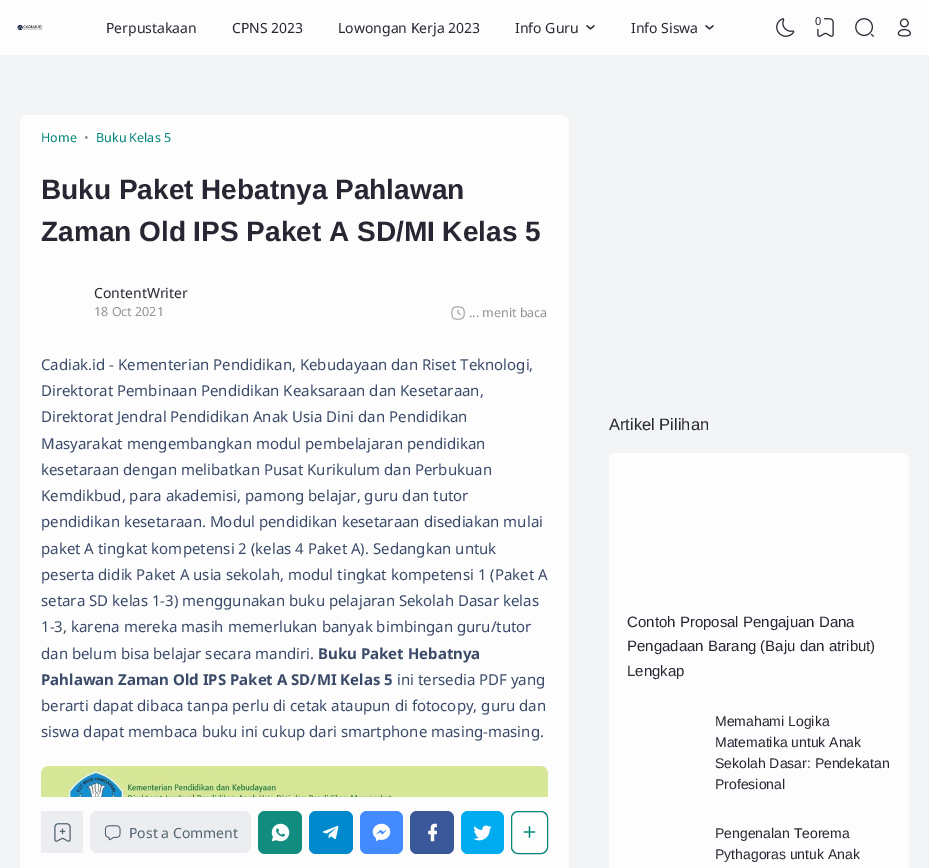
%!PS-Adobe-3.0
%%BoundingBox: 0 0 929 868
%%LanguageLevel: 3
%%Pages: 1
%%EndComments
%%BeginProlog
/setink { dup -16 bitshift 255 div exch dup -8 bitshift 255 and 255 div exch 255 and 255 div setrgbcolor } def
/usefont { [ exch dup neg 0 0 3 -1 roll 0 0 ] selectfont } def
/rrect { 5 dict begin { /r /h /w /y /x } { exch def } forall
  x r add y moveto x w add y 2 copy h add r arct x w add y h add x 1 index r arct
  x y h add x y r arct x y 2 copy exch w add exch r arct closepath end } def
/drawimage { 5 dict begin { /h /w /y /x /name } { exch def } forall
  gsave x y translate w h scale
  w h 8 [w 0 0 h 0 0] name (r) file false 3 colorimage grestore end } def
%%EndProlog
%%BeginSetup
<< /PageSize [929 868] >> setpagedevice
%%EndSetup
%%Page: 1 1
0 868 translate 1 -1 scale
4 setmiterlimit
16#F3F4F6 setink
0 0 929 868 rectfill
16#FDFDFD setink
0 0 929 55 rectfill
(img1.raw) 17 24 26 7 drawimage
/NotoSans-Regular 14 usefont
16#272733 setink
[
    [(Perpustakaan) 106 33]
    [(CPNS 2023) 232 33]
    [(Lowongan Kerja 2023) 338 33]
    [(Info Guru) 515 33]
] { aload pop moveto show } forall
/NotoSans-Regular 21 usefont
gsave 585 24 translate 90 rotate 0 0 moveto (›) show grestore
/NotoSans-Regular 14 usefont
631 33 moveto (Info Siswa) show
/NotoSans-Regular 21 usefont
gsave 704 24 translate 90 rotate 0 0 moveto (›) show grestore
(img2.raw) 776 18 19 19 drawimage
(img3.raw) 817 18 17 19 drawimage
16#FDFDFD setink
812 12 12 17 6 rrect fill
/NotoSans-Regular 11 usefont
16#272733 setink
815 25 moveto (0) show
(img4.raw) 855 18 19 19 drawimage
(img5.raw) 897 18 14 19 drawimage
16#FDFDFD setink
20 115 549 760 7 rrect fill
/NotoSans-Regular 12.5 usefont
16#00857C setink
41 142 moveto (Home) show
16#949494 setink
84 142 moveto (•) show
16#00857C setink
96 142 moveto (Buku Kelas 5) show
/LiberationSans-Bold 28 usefont
16#272733 setink
41 199 moveto (Buku Paket Hebatnya Pahlawan) show
41 241 moveto (Zaman Old IPS Paket A SD/MI Kelas 5) show
/NotoSans-Regular 14 usefont
94 298 moveto (ContentWriter) show
/NotoSans-Regular 12.5 usefont
16#949494 setink
94 316 moveto (18 Oct 2021) show
(img6.raw) 451 306 14 14 drawimage
469 317 moveto (... menit baca) show
/NotoSans-Regular 15 usefont
16#3A4A68 setink
[
    [(Cadiak.id - Kementerian Pendidikan, Kebudayaan dan Riset Teknologi,) 41 370]
    [(Direktorat Pembinaan Pendidikan Keaksaraan dan Kesetaraan,) 41 396]
    [(Direktorat Jendral Pendidikan Anak Usia Dini dan Pendidikan) 41 422]
    [(Masyarakat mengembangkan modul pembelajaran pendidikan) 41 449]
    [(kesetaraan dengan melibatkan Pusat Kurikulum dan Perbukuan) 41 475]
    [(Kemdikbud, para akademisi, pamong belajar, guru dan tutor) 41 501]
    [(pendidikan kesetaraan. Modul pendidikan kesetaraan disediakan mulai) 41 527]
    [(paket A tingkat kompetensi 2 \(kelas 4 Paket A\). Sedangkan untuk) 41 554]
    [(peserta didik Paket A usia sekolah, modul tingkat kompetensi 1 \(Paket A) 41 580]
    [(setara SD kelas 1-3\) menggunakan buku pelajaran Sekolah Dasar kelas) 41 606]
    [(1-3, karena mereka masih memerlukan banyak bimbingan guru/tutor) 41 632]
    [(dan belum bisa belajar secara mandiri.) 41 659]
] { aload pop moveto show } forall
/NotoSans-Bold 15 usefont
318 659 moveto (Buku Paket Hebatnya) show
41 685 moveto (Pahlawan Zaman Old IPS Paket A SD/MI Kelas 5) show
/NotoSans-Regular 15 usefont
[
    [(ini tersedia PDF yang) 397 685]
    [(berarti dapat dibaca tanpa perlu di cetak ataupun di fotocopy, guru dan) 41 711]
    [(siswa dapat membaca buku ini cukup dari smartphone masing-masing.) 41 737]
] { aload pop moveto show } forall
(img7.raw) 41 766 507 31 drawimage
16#EBEDF1 setink
41 811 42 42 rectfill
(img8.raw) 54 823 17 19 drawimage
90 811 161 42 7 rrect fill
(img9.raw) 104 825 17 16 drawimage
/NotoSans-Regular 14 usefont
16#536471 setink
129 838 moveto (Post a Comment) show
16#128C7E setink
258 811 44 43 7 rrect fill
(img10.raw) 271 823 19 19 drawimage
16#0088CC setink
309 811 44 43 7 rrect fill
(img11.raw) 322 825 17 15 drawimage
16#448AFF setink
360 811 43 43 7 rrect fill
(img12.raw) 372 823 19 19 drawimage
16#3A579A setink
410 811 44 43 7 rrect fill
(img13.raw) 428 823 9 19 drawimage
16#00ABF0 setink
461 811 43 43 7 rrect fill
(img14.raw) 473 825 19 16 drawimage
16#00857C setink
511.5 811.5 36 42 6.5 rrect stroke
/NotoSans-Regular 21 usefont
gsave 520 833 translate 45 rotate 0 0 moveto (×) show grestore
/LiberationSans-Regular 16.5 usefont
16#272733 setink
609 430 moveto (Artikel Pilihan) show
16#FDFDFD setink
609 453 300 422 7 rrect fill
/LiberationSans-Regular 15 usefont
16#272733 setink
[
    [(Contoh Proposal Pengajuan Dana) 627 627]
    [(Pengadaan Barang \(Baju dan atribut\)) 627 651]
    [(Lengkap) 627 676]
] { aload pop moveto show } forall
/LiberationSans-Regular 14 usefont
[
    [(Memahami Logika) 715 726]
    [(Matematika untuk Anak) 715 747]
    [(Sekolah Dasar: Pendekatan) 715 768]
    [(Profesional) 715 789]
    [(Pengenalan Teorema) 715 838]
    [(Pythagoras untuk Anak) 715 859]
] { aload pop moveto show } forall
showpage
%%EOF
